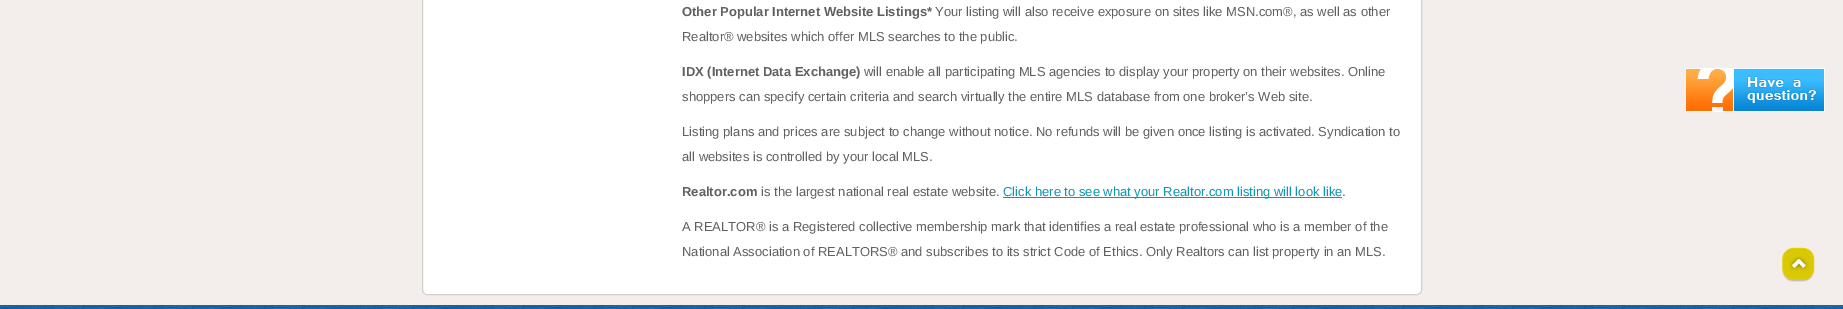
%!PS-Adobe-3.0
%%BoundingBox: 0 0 1843 309
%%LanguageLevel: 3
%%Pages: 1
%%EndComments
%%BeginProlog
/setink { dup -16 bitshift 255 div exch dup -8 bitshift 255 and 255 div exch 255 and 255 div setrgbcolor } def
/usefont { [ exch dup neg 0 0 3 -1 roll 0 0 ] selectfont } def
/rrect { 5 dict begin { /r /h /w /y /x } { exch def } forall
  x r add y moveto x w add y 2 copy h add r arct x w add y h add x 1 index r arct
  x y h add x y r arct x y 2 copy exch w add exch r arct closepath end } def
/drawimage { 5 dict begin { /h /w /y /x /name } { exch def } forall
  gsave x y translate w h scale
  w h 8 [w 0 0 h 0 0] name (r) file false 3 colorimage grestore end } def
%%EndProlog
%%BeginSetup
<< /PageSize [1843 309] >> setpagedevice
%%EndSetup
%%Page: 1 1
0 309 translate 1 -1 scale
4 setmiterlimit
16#FFFFFF setink
0 0 1843 309 rectfill
(img1.raw) 0 305 1843 4 drawimage
16#F3EEEB setink
0 0 1843 305 rectfill
16#FFFFFF setink
422.5 -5.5 999 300 4.5 rrect gsave fill grestore
16#D4CFCC setink
stroke
/LiberationSans-Bold 13 usefont
16#606060 setink
682 16 moveto (Other Popular Internet Website Listings*) show
/LiberationSans-Regular 13 usefont
935 16 moveto (Your listing will also receive exposure on sites like MSN.com®, as well as other) show
682 41 moveto (Realtor® websites which offer MLS searches to the public.) show
/LiberationSans-Bold 13 usefont
682 76 moveto (IDX \(Internet Data Exchange\)) show
/LiberationSans-Regular 13 usefont
[
    [(will enable all participating MLS agencies to display your property on their websites. Online) 864 76]
    [(shoppers can specify certain criteria and search virtually the entire MLS database from one broker’s Web site.) 682 101]
    [(Listing plans and prices are subject to change without notice. No refunds will be given once listing is activated. Syndication to) 682 136]
    [(all websites is controlled by your local MLS.) 682 161]
] { aload pop moveto show } forall
/LiberationSans-Bold 13 usefont
682 196 moveto (Realtor.com) show
/LiberationSans-Regular 13 usefont
761 196 moveto (is the largest national real estate website.) show
16#0C96B1 setink
1003 197 339 1 rectfill
1003 196 moveto (Click here to see what your Realtor.com listing will look like) show
16#606060 setink
[
    [(.) 1342 196]
    [(A REALTOR® is a Registered collective membership mark that identifies a real estate professional who is a member of the) 682 231]
    [(National Association of REALTORS® and subscribes to its strict Code of Ethics. Only Realtors can list property in an MLS.) 682 256]
] { aload pop moveto show } forall
(img2.raw) 1685 68 140 44 drawimage
(img3.raw) 1782 247 33 35 drawimage
showpage
%%EOF
